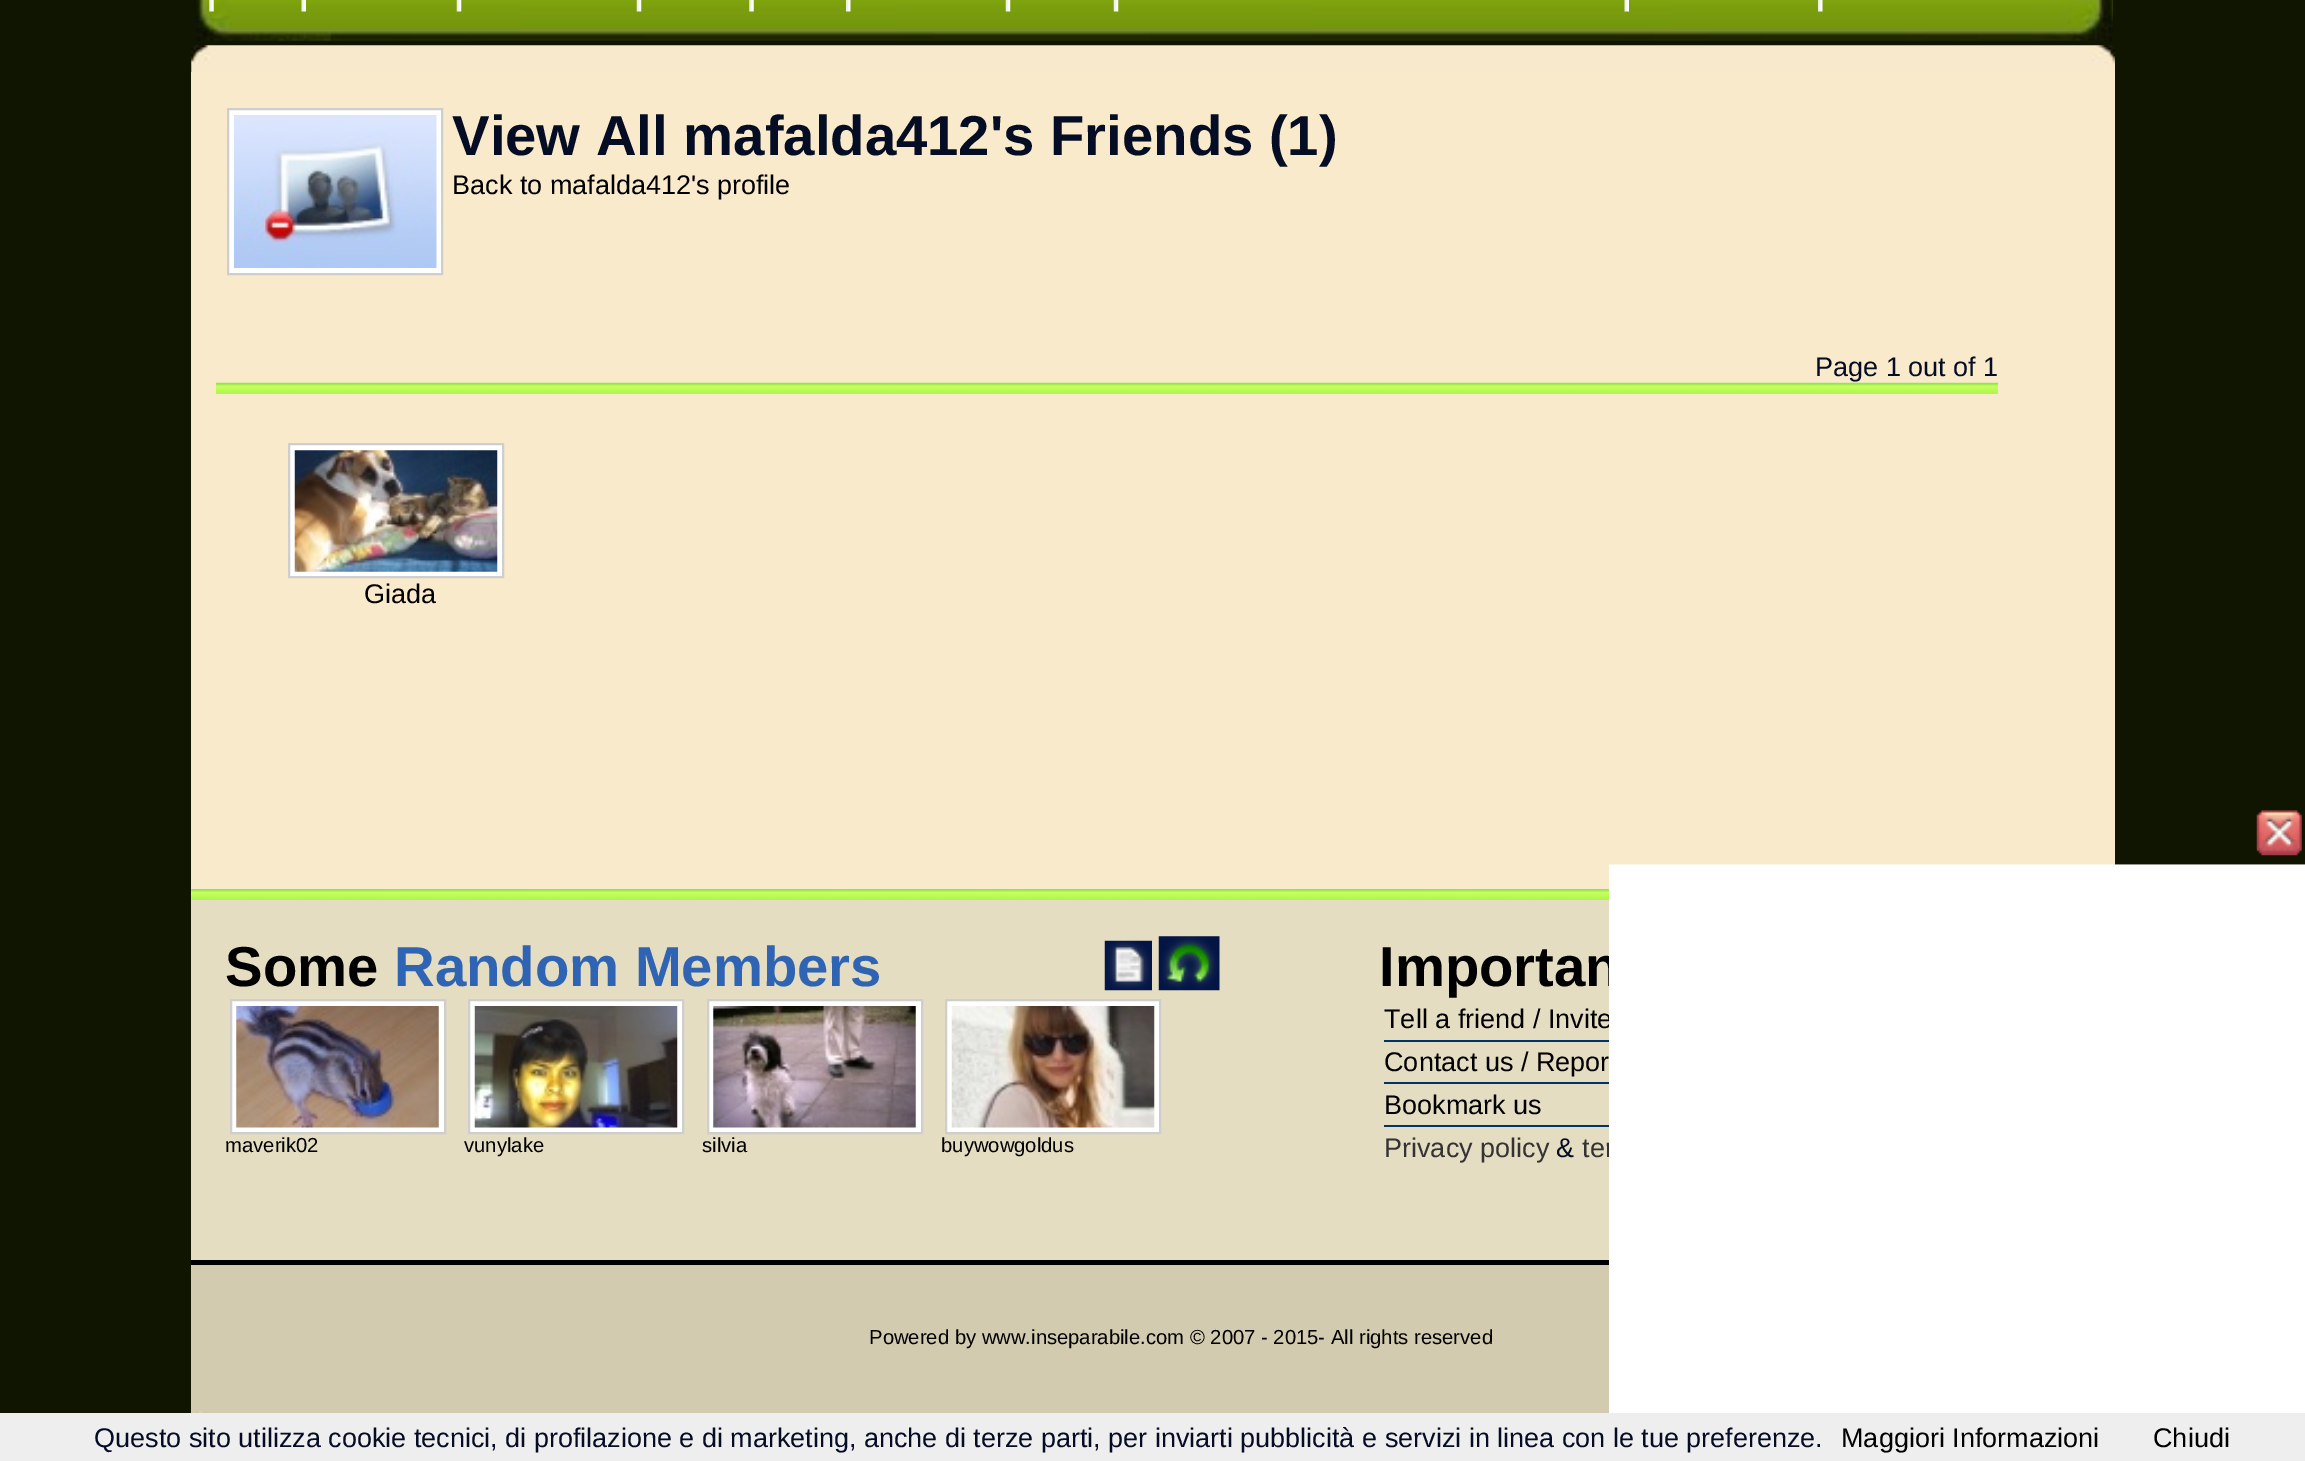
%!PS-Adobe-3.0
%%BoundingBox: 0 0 2305 1461
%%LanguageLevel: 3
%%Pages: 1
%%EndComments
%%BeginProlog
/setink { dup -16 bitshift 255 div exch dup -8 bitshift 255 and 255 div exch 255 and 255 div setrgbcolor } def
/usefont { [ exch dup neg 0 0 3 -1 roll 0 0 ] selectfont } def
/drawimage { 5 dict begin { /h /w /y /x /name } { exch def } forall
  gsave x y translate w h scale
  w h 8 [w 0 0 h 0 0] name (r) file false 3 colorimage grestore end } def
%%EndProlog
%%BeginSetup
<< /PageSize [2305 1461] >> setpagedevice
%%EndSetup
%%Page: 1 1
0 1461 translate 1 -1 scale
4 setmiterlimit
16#0F1501 setink
0 0 2305 1461 rectfill
(img1.raw) 196 0 1917 41 drawimage
(img2.raw) 209 0 5 12 drawimage
(img3.raw) 301 0 5 12 drawimage
(img4.raw) 456 0 6 12 drawimage
(img5.raw) 636 0 6 12 drawimage
(img6.raw) 749 0 5 12 drawimage
(img7.raw) 846 0 5 12 drawimage
(img4.raw) 1005 0 6 12 drawimage
(img4.raw) 1113 0 6 12 drawimage
(img8.raw) 1624 0 5 12 drawimage
(img9.raw) 1818 0 5 12 drawimage
(img10.raw) 191 45 1924 27 drawimage
16#F9EACB setink
191 72 1924 817 rectfill
16#FFFFFF setink
228 109 moveto 442 109 lineto 442 274 lineto 228 274 lineto closepath gsave fill grestore
16#CECECE setink
2 setlinewidth
stroke
(img11.raw) 234 115 203 153 drawimage
/LiberationSans-Bold 56.25 usefont
16#050D24 setink
452 155 moveto (View All mafalda412's Friends \(1\)) show
/LiberationSans-Regular 27 usefont
16#000000 setink
452 194 moveto (Back to mafalda412's profile) show
16#050D24 setink
1815 376 moveto (Page 1 out of 1) show
(img12.raw) 216 382 1782 12 drawimage
16#FFFFFF setink
289 444 moveto 503 444 lineto 503 577 lineto 289 577 lineto closepath gsave fill grestore
16#CECECE setink
stroke
(img13.raw) 294 450 204 122 drawimage
16#000000 setink
364 603 moveto (Giada) show
(img14.raw) 191 889 1418 11 drawimage
16#E4DDC1 setink
191 900 1418 360 rectfill
/LiberationSans-Bold 56.25 usefont
16#000000 setink
225 986 moveto (Some) show
16#2F63B3 setink
394 986 moveto (Random Members) show
(img15.raw) 1104 940 48 51 drawimage
(img16.raw) 1158 936 62 55 drawimage
16#FFFFFF setink
231 1000 moveto 445 1000 lineto 445 1133 lineto 231 1133 lineto closepath gsave fill grestore
16#CECECE setink
stroke
(img17.raw) 236 1006 203 122 drawimage
/LiberationSans-Regular 20.25 usefont
16#000000 setink
225 1152 moveto (maverik02) show
16#FFFFFF setink
469 1000 moveto 683 1000 lineto 683 1133 lineto 469 1133 lineto closepath gsave fill grestore
16#CECECE setink
stroke
(img18.raw) 474 1006 204 122 drawimage
16#000000 setink
464 1152 moveto (vunylake) show
16#FFFFFF setink
708 1000 moveto 922 1000 lineto 922 1133 lineto 708 1133 lineto closepath gsave fill grestore
16#CECECE setink
stroke
(img19.raw) 713 1006 203 122 drawimage
16#000000 setink
702 1152 moveto (silvia) show
16#FFFFFF setink
946 1000 moveto 1160 1000 lineto 1160 1133 lineto 946 1133 lineto closepath gsave fill grestore
16#CECECE setink
stroke
(img20.raw) 951 1006 204 122 drawimage
16#000000 setink
941 1152 moveto (buywowgoldus) show
/LiberationSans-Bold 56.25 usefont
1379 986 moveto (Importan) show
/LiberationSans-Regular 27 usefont
1384 1028 moveto (Tell a friend / Invite) show
16#003366 setink
1384 1040 225 2 rectfill
16#000000 setink
1384 1071 moveto (Contact us / Repor) show
16#003366 setink
1384 1082 225 2 rectfill
16#000000 setink
1384 1114 moveto (Bookmark us) show
16#003366 setink
1384 1125 225 2 rectfill
16#333333 setink
1384 1157 moveto (Privacy policy) show
16#050D24 setink
1556 1157 moveto (&) show
16#333333 setink
1582 1157 moveto (ter) show
16#000000 setink
191 1260 1418 5 rectfill
16#D2CBAF setink
191 1265 1418 146 rectfill
/LiberationSans-Regular 20.25 usefont
16#000000 setink
869 1344 moveto (Powered by www.inseparabile.com © 2007 - 2015- All rights reserved) show
(img21.raw) 191 1411 1418 2 drawimage
(img22.raw) 1609 810 696 603 drawimage
16#EEEEEE setink
0 1413 2305 48 rectfill
/LiberationSans-Regular 27 usefont
16#050D24 setink
94 1447 moveto (Questo sito utilizza cookie tecnici, di profilazione e di marketing, anche di terze parti, per inviarti pubblicità e servizi in linea con le tue preferenze.) show
16#000000 setink
1841 1447 moveto (Maggiori Informazioni) show
2153 1447 moveto (Chiudi) show
showpage
%%EOF
